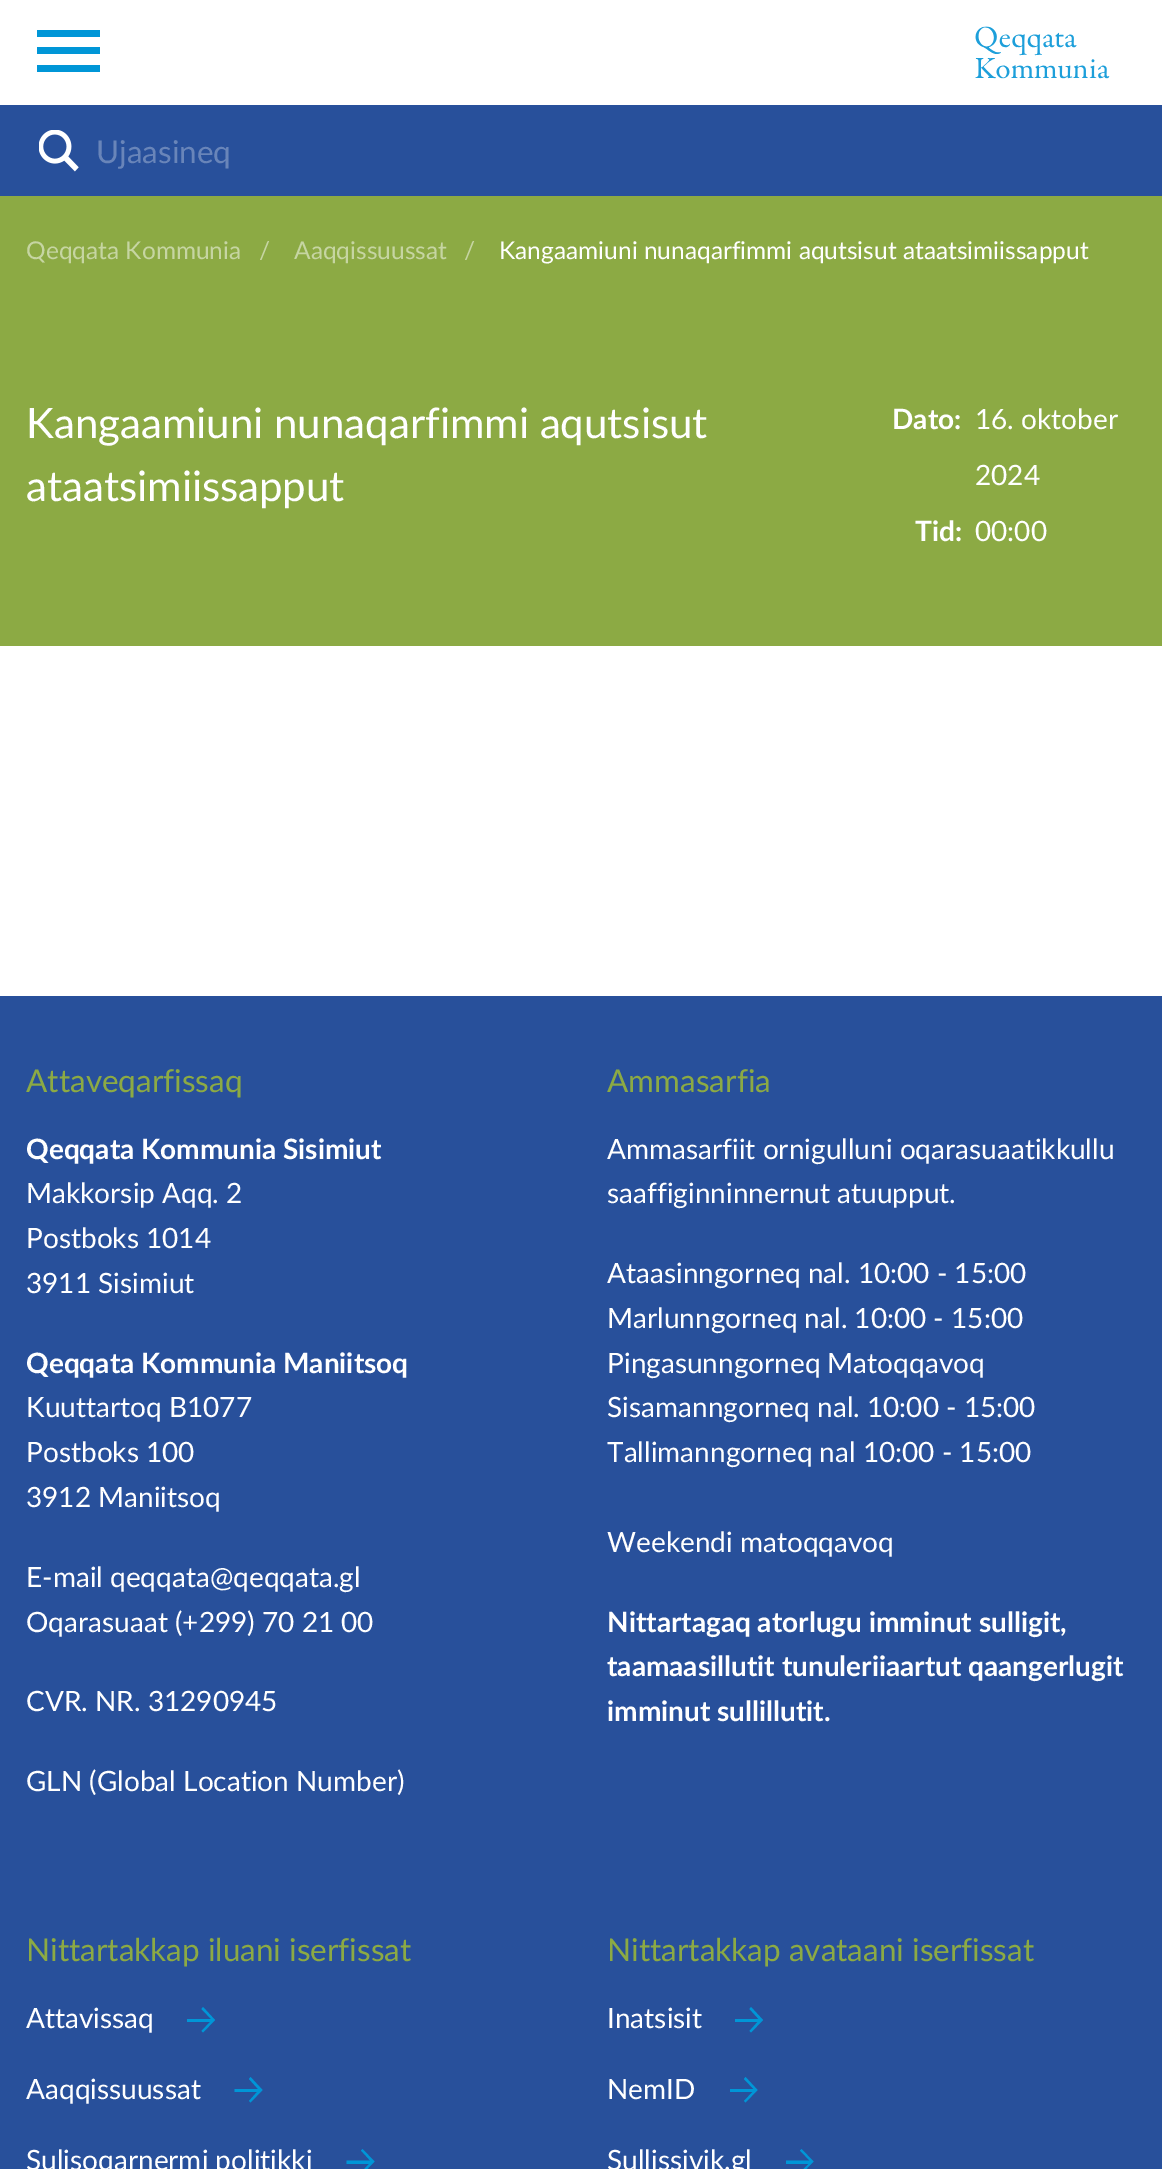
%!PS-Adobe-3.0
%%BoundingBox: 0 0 1162 2169
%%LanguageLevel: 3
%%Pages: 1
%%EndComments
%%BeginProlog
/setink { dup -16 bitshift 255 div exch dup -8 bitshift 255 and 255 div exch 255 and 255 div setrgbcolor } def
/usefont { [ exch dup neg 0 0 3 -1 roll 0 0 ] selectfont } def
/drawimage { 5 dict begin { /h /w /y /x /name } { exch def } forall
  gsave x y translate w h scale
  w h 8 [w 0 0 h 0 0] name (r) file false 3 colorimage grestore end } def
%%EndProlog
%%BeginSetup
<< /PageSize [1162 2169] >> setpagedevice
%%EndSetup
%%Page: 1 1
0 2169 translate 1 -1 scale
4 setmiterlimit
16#FFFFFF setink
0 0 1162 2169 rectfill
16#0096D7 setink
37 72 moveto 37 65 lineto 100 65 lineto 100 72 lineto closepath 37 54 moveto 37 47 lineto 100 47 lineto 100 54 lineto closepath 37 30 moveto 100 30 lineto 100 37 lineto 37 37 lineto closepath fill
(img1.raw) 975 26 135 53 drawimage
16#28509B setink
0 105 1162 91 rectfill
(img2.raw) 39 130 40 42 drawimage
/Lato-Regular 31.5 usefont
16#6985B9 setink
96 163 moveto (Ujaasineq) show
16#8CAA44 setink
0 196 1162 450 rectfill
/Lato-Regular 24.5 usefont
16#C6D5A2 setink
[
    [(Qeqqata Kommunia) 26 259]
    [(/) 259 259]
    [(Aaqqissuussat) 294 259]
    [(/) 464 259]
] { aload pop moveto show } forall
16#FFFFFF setink
499 259 moveto (Kangaamiuni nunaqarfimmi aqutsisut ataatsimiissapput) show
/Lato-Regular 42 usefont
26 438 moveto (Kangaamiuni nunaqarfimmi aqutsisut) show
26 501 moveto (ataatsimiissapput) show
/Lato-Bold 28 usefont
892 429 moveto (Dato:) show
/Lato-Regular 28 usefont
975 429 moveto (16. oktober) show
975 485 moveto (2024) show
/Lato-Bold 28 usefont
915 541 moveto (Tid:) show
/Lato-Regular 28 usefont
975 541 moveto (00:00) show
16#28509B setink
0 996 1162 1173 rectfill
/Lato-Regular 31.5 usefont
16#8CAA44 setink
26 1092 moveto (Attaveqarfissaq) show
/Lato-Bold 28 usefont
16#FFFFFF setink
26 1159 moveto (Qeqqata Kommunia Sisimiut) show
/Lato-Regular 28 usefont
[
    [(Makkorsip Aqq. 2) 26 1203]
    [(Postboks 1014) 26 1248]
    [(3911 Sisimiut) 26 1293]
] { aload pop moveto show } forall
/Lato-Bold 28 usefont
26 1373 moveto (Qeqqata Kommunia Maniitsoq) show
/Lato-Regular 28 usefont
[
    [(Kuuttartoq B1077) 26 1417]
    [(Postboks 100) 26 1462]
    [(3912 Maniitsoq) 26 1507]
    [(E-mail qeqqata@qeqqata.gl) 26 1587]
    [(Oqarasuaat \(+299\) 70 21 00) 26 1632]
    [(CVR. NR. 31290945) 26 1711]
    [(GLN \(Global Location Number\)) 26 1791]
] { aload pop moveto show } forall
/Lato-Regular 31.5 usefont
16#8CAA44 setink
607 1092 moveto (Ammasarfia) show
/Lato-Regular 28 usefont
16#FFFFFF setink
[
    [(Ammasarfiit ornigulluni oqarasuaatikkullu) 607 1159]
    [(saaffiginninnernut atuupput.) 607 1203]
    [(Ataasinngorneq nal. 10:00 - 15:00) 607 1283]
    [(Marlunngorneq nal. 10:00 - 15:00) 607 1328]
    [(Pingasunngorneq Matoqqavoq) 607 1373]
    [(Sisamanngorneq nal. 10:00 - 15:00) 607 1417]
    [(Tallimanngorneq nal 10:00 - 15:00) 607 1462]
    [(Weekendi matoqqavoq) 607 1552]
] { aload pop moveto show } forall
/Lato-Bold 28 usefont
[
    [(Nittartagaq atorlugu imminut sulligit,) 607 1632]
    [(taamaasillutit tunuleriiaartut qaangerlugit) 607 1676]
    [(imminut sullillutit.) 607 1721]
] { aload pop moveto show } forall
/Lato-Regular 31.5 usefont
16#8CAA44 setink
26 1961 moveto (Nittartakkap iluani iserfissat) show
/Lato-Regular 28 usefont
16#FFFFFF setink
26 2028 moveto (Attavissaq) show
16#0096D7 setink
201.5 2031 moveto 203 2032.5 lineto 215 2020 lineto 203 2007 lineto 201.5 2009 lineto 212 2020 lineto 212 2019 lineto 187 2019 lineto 187 2022 lineto 210 2022 lineto closepath fill
16#FFFFFF setink
26 2099 moveto (Aaqqissuussat) show
16#0096D7 setink
249 2101 moveto 250.5 2102.5 lineto 262.5 2090 lineto 250.5 2077 lineto 249 2079 lineto 259 2090 lineto 259 2089 lineto 234.5 2089 lineto 234.5 2092 lineto 257 2092 lineto closepath fill
16#FFFFFF setink
26 2170 moveto (Sulisoqarnermi politikki) show
16#0096D7 setink
361 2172.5 moveto 362.5 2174 lineto 374.5 2161.5 lineto 362.5 2149 lineto 361 2150.5 lineto 371 2161.5 lineto 371 2160.5 lineto 346.5 2160.5 lineto 346.5 2164 lineto 369 2164 lineto closepath fill
/Lato-Regular 31.5 usefont
16#8CAA44 setink
607 1961 moveto (Nittartakkap avataani iserfissat) show
/Lato-Regular 28 usefont
16#FFFFFF setink
607 2028 moveto (Inatsisit) show
16#0096D7 setink
749.5 2031 moveto 751 2032.5 lineto 763 2020 lineto 751 2007 lineto 749.5 2009 lineto 759.5 2020 lineto 759.5 2019 lineto 735 2019 lineto 735 2022 lineto 757.5 2022 lineto closepath fill
16#FFFFFF setink
607 2099 moveto (NemID) show
16#0096D7 setink
744 2101 moveto 745.5 2102.5 lineto 757.5 2090 lineto 745.5 2077 lineto 744 2079 lineto 754.5 2090 lineto 754.5 2089 lineto 730 2089 lineto 730 2092 lineto 752.5 2092 lineto closepath fill
16#FFFFFF setink
607 2170 moveto (Sullissivik.gl) show
16#0096D7 setink
800 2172.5 moveto 801.5 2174 lineto 813.5 2161.5 lineto 801.5 2149 lineto 800 2150.5 lineto 810.5 2161.5 lineto 810.5 2160.5 lineto 786 2160.5 lineto 786 2164 lineto 808.5 2164 lineto closepath fill
showpage
%%EOF
